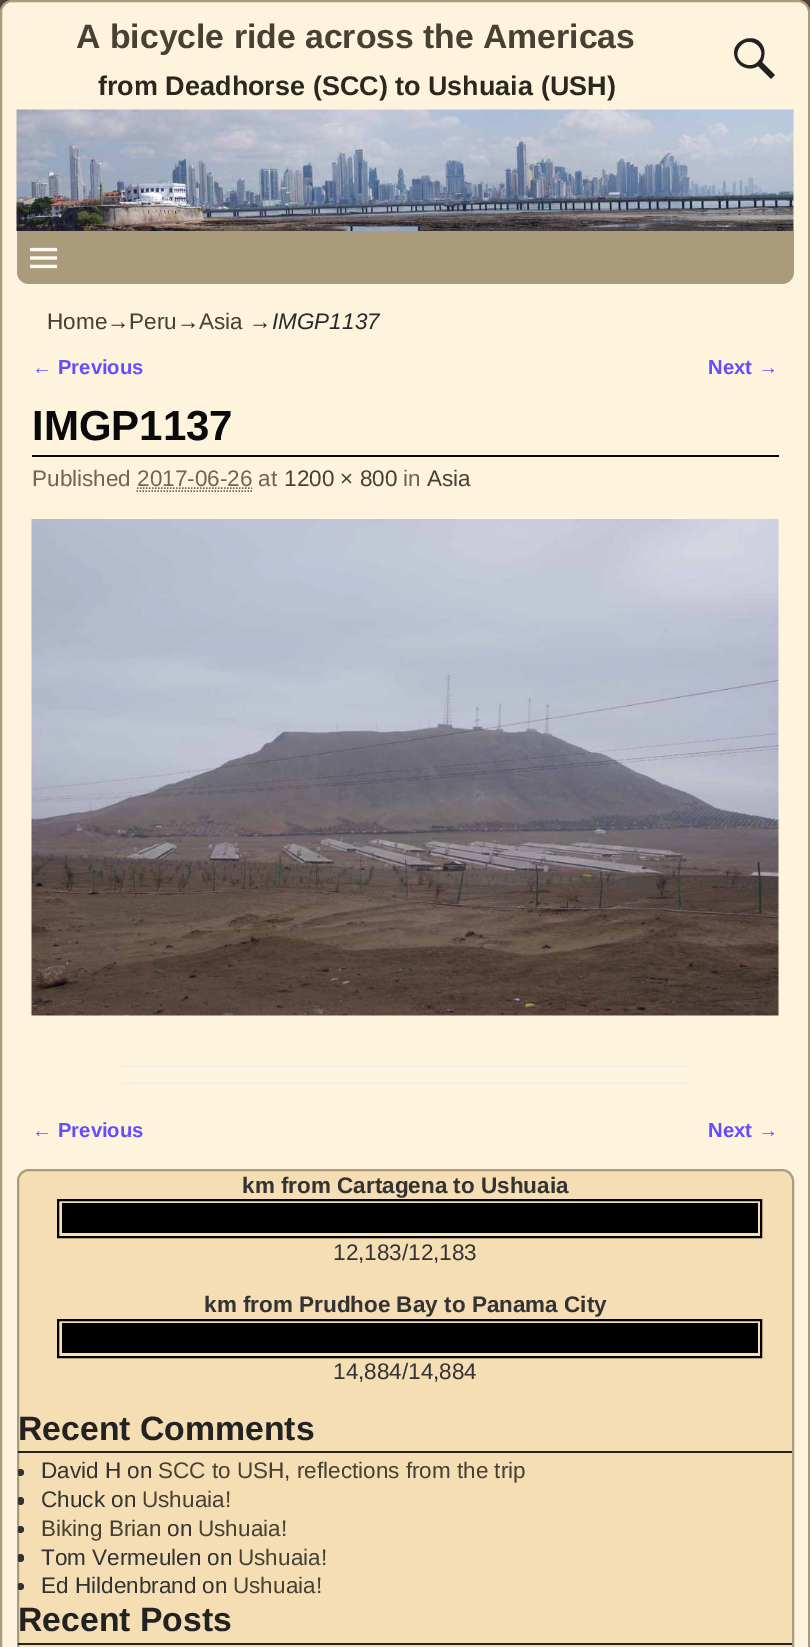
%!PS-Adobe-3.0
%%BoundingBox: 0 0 810 1647
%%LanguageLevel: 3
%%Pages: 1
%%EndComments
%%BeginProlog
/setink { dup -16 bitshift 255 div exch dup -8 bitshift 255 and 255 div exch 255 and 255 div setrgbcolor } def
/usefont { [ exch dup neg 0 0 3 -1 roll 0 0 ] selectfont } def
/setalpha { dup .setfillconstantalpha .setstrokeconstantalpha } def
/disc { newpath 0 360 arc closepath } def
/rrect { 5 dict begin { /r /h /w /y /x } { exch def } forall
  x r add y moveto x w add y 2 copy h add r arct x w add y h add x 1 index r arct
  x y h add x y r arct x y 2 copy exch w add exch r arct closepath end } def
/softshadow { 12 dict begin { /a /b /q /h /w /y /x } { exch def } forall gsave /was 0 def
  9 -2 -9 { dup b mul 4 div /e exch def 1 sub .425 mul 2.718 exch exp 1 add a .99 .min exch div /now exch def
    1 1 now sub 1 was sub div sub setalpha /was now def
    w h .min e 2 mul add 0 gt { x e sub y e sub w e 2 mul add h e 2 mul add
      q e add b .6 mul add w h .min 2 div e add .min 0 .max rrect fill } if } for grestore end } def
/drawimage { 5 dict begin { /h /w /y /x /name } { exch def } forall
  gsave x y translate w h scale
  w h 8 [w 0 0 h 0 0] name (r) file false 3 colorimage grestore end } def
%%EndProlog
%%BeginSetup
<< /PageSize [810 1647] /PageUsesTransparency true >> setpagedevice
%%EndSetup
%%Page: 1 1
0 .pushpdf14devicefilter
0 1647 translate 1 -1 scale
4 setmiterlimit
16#C7B491 setink
0 0 810 1647 rectfill
(img1.raw) 0 0 810 12 drawimage
16#000000 setink
-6 -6 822 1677 18 2 0.25 softshadow
16#FEF3DD setink
1 1 808 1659 11 rrect gsave fill grestore
16#AB9B7D setink
2 setlinewidth
stroke
/LiberationSans-Bold 33.75 usefont
16#474134 setink
76 48 moveto (A bicycle ride across the Americas) show
16#222222 setink
775 75 moveto 771 79 lineto 758 66 lineto 751 71 740 68 736 60 curveto 726 41 758 28 764 49 curveto 765 54 764 59 762 62 curveto closepath 739 48 moveto 731 61 752 73 760 59 curveto 767 46 747 34 739 48 curveto closepath fill
/LiberationSans-Bold 27 usefont
16#2B2820 setink
98 95 moveto (from Deadhorse \(SCC\) to Ushuaia \(USH\)) show
(img2.raw) 16 109 778 122 drawimage
16#AB9B7D setink
17 231 moveto 794 231 lineto 794 272 lineto 794 278.5 788.5 284 782 284 curveto 29 284 lineto 22.5 284 17 278.5 17 272 curveto closepath fill
(img3.raw) 30 247 27 22 drawimage
/LiberationSans-Regular 22.5 usefont
16#474134 setink
47 329 moveto (Home) show
16#292929 setink
107 329 moveto (→) show
16#474134 setink
129 329 moveto (Peru) show
16#292929 setink
177 329 moveto (→) show
16#474134 setink
199 329 moveto (Asia) show
16#292929 setink
249 329 moveto (→) show
/LiberationSans-Italic 22.5 usefont
272 329 moveto (IMGP1137) show
/LiberationSans-Bold 20.25 usefont
16#644DFF setink
32 374 moveto (← Previous) show
708 374 moveto (Next →) show
16#0A0A0A setink
32 455 747 2 rectfill
/LiberationSans-Bold 42 usefont
32 440 moveto (IMGP1137) show
/LiberationSans-Regular 22.5 usefont
16#706752 setink
32 486 moveto (Published 2017-06-26 at) show
16#474134 setink
284 486 moveto (1200 × 800) show
16#706752 setink
403 486 moveto (in) show
16#474134 setink
427 486 moveto (Asia) show
16#706752 setink
1.5 setlinewidth
[1.5 1.5] 0 setdash
137 488 moveto 252 488 lineto stroke
136.5 491 moveto 252 491 lineto stroke
(img4.raw) 31 519 748 497 drawimage
16#EEEEEE setink
122 1065 567 2 rectfill
122 1082 567 2 rectfill
/LiberationSans-Bold 20.25 usefont
16#644DFF setink
32 1137 moveto (← Previous) show
708 1137 moveto (Next →) show
16#F5DEB3 setink
18 1170 775 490 11 rrect gsave fill grestore
16#AB9B7D setink
2 setlinewidth
[] 0 setdash
stroke
/LiberationSans-Bold 22.5 usefont
16#333333 setink
242 1193 moveto (km from Cartagena to Ushuaia) show
16#000000 setink
58 1200 703 37 rectstroke
62 1203 696 30 rectfill
/LiberationSans-Regular 22.5 usefont
16#333333 setink
333 1260 moveto (12,183/12,183) show
/LiberationSans-Bold 22.5 usefont
204 1312 moveto (km from Prudhoe Bay to Panama City) show
16#000000 setink
58 1320 703 37 rectstroke
62 1323 696 30 rectfill
/LiberationSans-Regular 22.5 usefont
16#333333 setink
333 1379 moveto (14,884/14,884) show
16#222222 setink
18 1451 774 2 rectfill
/LiberationSans-Bold 33.75 usefont
18 1440 moveto (Recent Comments) show
gsave
18 1409 774 190 rectclip
16#333333 setink
20.5 1472.5 3.5 disc fill
grestore
/LiberationSans-Regular 22.5 usefont
16#333333 setink
41 1478 moveto (David H on) show
16#474134 setink
158 1478 moveto (SCC to USH, reflections from the trip) show
gsave
18 1409 774 190 rectclip
16#333333 setink
17 1497 7 8 3.5 rrect fill
grestore
16#333333 setink
41 1507 moveto (Chuck on) show
16#474134 setink
142 1507 moveto (Ushuaia!) show
gsave
18 1409 774 190 rectclip
16#333333 setink
20.5 1529.5 3.5 disc fill
grestore
41 1536 moveto (Biking Brian) show
16#333333 setink
167 1536 moveto (on) show
16#474134 setink
198 1536 moveto (Ushuaia!) show
gsave
18 1409 774 190 rectclip
16#333333 setink
17 1554 7 8 3.5 rrect fill
grestore
16#333333 setink
41 1565 moveto (Tom Vermeulen on) show
16#474134 setink
238 1565 moveto (Ushuaia!) show
gsave
18 1409 774 190 rectclip
16#333333 setink
20.5 1586.5 3.5 disc fill
grestore
16#333333 setink
41 1593 moveto (Ed Hildenbrand on) show
16#474134 setink
233 1593 moveto (Ushuaia!) show
16#222222 setink
18 1643 774 2 rectfill
/LiberationSans-Bold 33.75 usefont
18 1631 moveto (Recent Posts) show
.poppdf14devicefilter showpage
%%EOF
